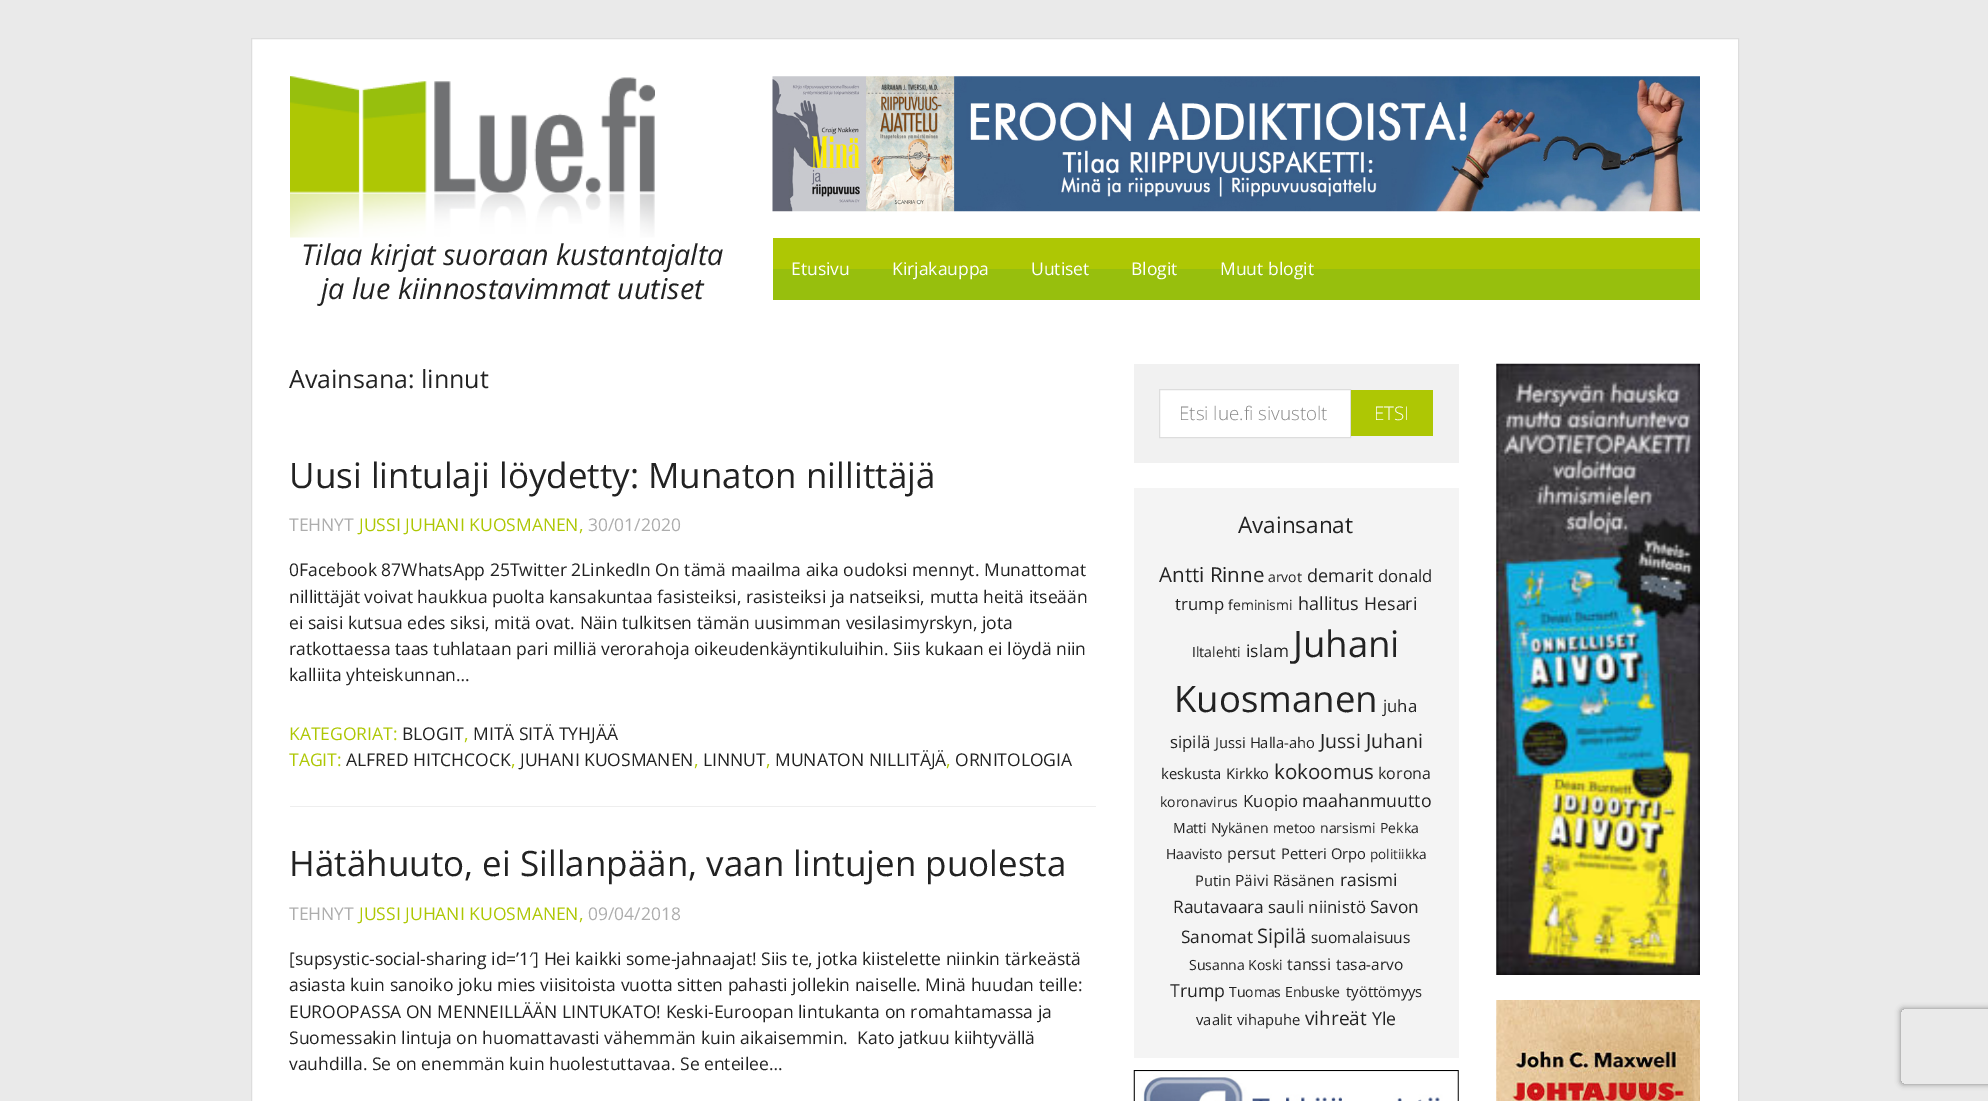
%!PS-Adobe-3.0
%%BoundingBox: 0 0 1988 1101
%%LanguageLevel: 3
%%Pages: 1
%%EndComments
%%BeginProlog
/setink { dup -16 bitshift 255 div exch dup -8 bitshift 255 and 255 div exch 255 and 255 div setrgbcolor } def
/usefont { [ exch dup neg 0 0 3 -1 roll 0 0 ] selectfont } def
/setalpha { dup .setfillconstantalpha .setstrokeconstantalpha } def
/rrect { 5 dict begin { /r /h /w /y /x } { exch def } forall
  x r add y moveto x w add y 2 copy h add r arct x w add y h add x 1 index r arct
  x y h add x y r arct x y 2 copy exch w add exch r arct closepath end } def
/softshadow { 12 dict begin { /a /b /q /h /w /y /x } { exch def } forall gsave /was 0 def
  9 -2 -9 { dup b mul 4 div /e exch def 1 sub .425 mul 2.718 exch exp 1 add a .99 .min exch div /now exch def
    1 1 now sub 1 was sub div sub setalpha /was now def
    w h .min e 2 mul add 0 gt { x e sub y e sub w e 2 mul add h e 2 mul add
      q e add b .6 mul add w h .min 2 div e add .min 0 .max rrect fill } if } for grestore end } def
/drawimage { 5 dict begin { /h /w /y /x /name } { exch def } forall
  gsave x y translate w h scale
  w h 8 [w 0 0 h 0 0] name (r) file false 3 colorimage grestore end } def
%%EndProlog
%%BeginSetup
<< /PageSize [1988 1101] /PageUsesTransparency true >> setpagedevice
%%EndSetup
%%Page: 1 1
0 .pushpdf14devicefilter
0 1101 translate 1 -1 scale
4 setmiterlimit
16#EAEAEA setink
0 0 1988 1101 rectfill
16#FFFFFF setink
251.5 38.5 moveto 1738.5 38.5 lineto 1738.5 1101.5 lineto 251.5 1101.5 lineto closepath gsave fill grestore
16#DDDDDD setink
stroke
(img1.raw) 290 76 365 162 drawimage
(img2.raw) 772 76 928 136 drawimage
/OpenSans-Italic 28.75 usefont
16#222222 setink
301 265 moveto (Tilaa kirjat suoraan kustantajalta) show
321 299 moveto (ja lue kiinnostavimmat uutiset) show
16#AEC704 setink
773 238 927 31 rectfill
16#97BF0D setink
773 269 927 31 rectfill
/OpenSans-Regular 17.5 usefont
16#FFFFFF setink
[
    [(Etusivu) 791 275]
    [(Kirjakauppa) 892 275]
    [(Uutiset) 1031 275]
    [(Blogit) 1131 275]
    [(Muut blogit) 1220 275]
] { aload pop moveto show } forall
/OpenSans-Regular 25 usefont
16#222222 setink
289 388 moveto (Avainsana: linnut) show
16#EEEEEE setink
290 806 806 1 rectfill
/OpenSans-Regular 35 usefont
16#222222 setink
289 488 moveto (Uusi lintulaji löydetty: Munaton nillittäjä) show
/OpenSans-Regular 17.5 usefont
16#ADADAD setink
289 531 moveto (TEHNYT) show
16#AEC704 setink
359 531 moveto (JUSSI JUHANI KUOSMANEN,) show
16#ADADAD setink
588 531 moveto (30/01/2020) show
16#222222 setink
[
    [(0Facebook 87WhatsApp 25Twitter 2LinkedIn On tämä maailma aika oudoksi mennyt. Munattomat) 289 576]
    [(nillittäjät voivat haukkua puolta kansakuntaa fasisteiksi, rasisteiksi ja natseiksi, mutta heitä itseään) 289 603]
    [(ei saisi kutsua edes siksi, mitä ovat. Näin tulkitsen tämän uusimman vesilasimyrskyn, jota) 289 629]
    [(ratkottaessa taas tuhlataan pari milliä verorahoja oikeudenkäyntikuluihin. Siis kukaan ei löydä niin) 289 655]
    [(kalliita yhteiskunnan…) 289 681]
] { aload pop moveto show } forall
16#AEC704 setink
289 740 moveto (KATEGORIAT:) show
16#222222 setink
402 740 moveto (BLOGIT) show
16#AEC704 setink
464 740 moveto (,) show
16#222222 setink
473 740 moveto (MITÄ SITÄ TYHJÄÄ) show
16#AEC704 setink
289 766 moveto (TAGIT:) show
16#222222 setink
346 766 moveto (ALFRED HITCHCOCK) show
16#AEC704 setink
511 766 moveto (,) show
16#222222 setink
520 766 moveto (JUHANI KUOSMANEN) show
16#AEC704 setink
694 766 moveto (,) show
16#222222 setink
703 766 moveto (LINNUT) show
16#AEC704 setink
766 766 moveto (,) show
16#222222 setink
775 766 moveto (MUNATON NILLITÄJÄ) show
16#AEC704 setink
946 766 moveto (,) show
16#222222 setink
955 766 moveto (ORNITOLOGIA) show
/OpenSans-Regular 35 usefont
289 876 moveto (Hätähuuto, ei Sillanpään, vaan lintujen puolesta) show
/OpenSans-Regular 17.5 usefont
16#ADADAD setink
289 920 moveto (TEHNYT) show
16#AEC704 setink
359 920 moveto (JUSSI JUHANI KUOSMANEN,) show
16#ADADAD setink
588 920 moveto (09/04/2018) show
16#222222 setink
[
    [([supsystic-social-sharing id=’1′] Hei kaikki some-jahnaajat! Siis te, jotka kiistelette niinkin tärkeästä) 289 965]
    [(asiasta kuin sanoiko joku mies viisitoista vuotta sitten pahasti jollekin naiselle. Minä huudan teille:) 289 991]
    [(EUROOPASSA ON MENNEILLÄÄN LINTUKATO! Keski-Euroopan lintukanta on romahtamassa ja) 289 1018]
    [(Suomessakin lintuja on huomattavasti vähemmän kuin aikaisemmin.  Kato jatkuu kiihtyvällä) 289 1044]
    [(vauhdilla. Se on enemmän kuin huolestuttavaa. Se enteilee…) 289 1070]
] { aload pop moveto show } forall
16#F1F1F1 setink
1134 364 325 99 rectfill
16#FFFFFF setink
1159.5 389.5 moveto 1350.5 389.5 lineto 1350.5 437.5 lineto 1159.5 437.5 lineto closepath gsave fill grestore
16#DDDDDD setink
stroke
/OpenSans-Light 18.75 usefont
16#888888 setink
1179 420 moveto (Etsi lue.fi sivustolt) show
16#AEC704 setink
1351 390 82 46 rectfill
16#FFFFFF setink
1374 420 moveto (ETSI) show
16#F4F4F4 setink
1134 488 325 570 rectfill
/OpenSans-Regular 22.5 usefont
16#222222 setink
1238 533 moveto (Avainsanat) show
/OpenSans-Regular 20.5 usefont
1159 582 moveto (Antti Rinne) show
/OpenSans-Regular 14 usefont
1268 582 moveto (arvot) show
/OpenSans-Regular 18 usefont
1307 582 moveto (demarit) show
/OpenSans-Regular 16.75 usefont
1378 582 moveto (donald) show
1175 610 moveto (trump) show
/OpenSans-Regular 14 usefont
1228 610 moveto (feminismi) show
/OpenSans-Regular 18 usefont
1298 610 moveto (hallitus) show
/OpenSans-Regular 17.75 usefont
1364 610 moveto (Hesari) show
/OpenSans-Regular 14 usefont
1192 657 moveto (Iltalehti) show
/OpenSans-Regular 17.25 usefont
1246 657 moveto (islam) show
/OpenSans-Regular 36.5 usefont
1293 657 moveto (Juhani) show
1174 712 moveto (Kuosmanen) show
/OpenSans-Regular 16.75 usefont
1383 712 moveto (juha) show
1170 748 moveto (sipilä) show
/OpenSans-Regular 14.75 usefont
1215 748 moveto (Jussi Halla-aho) show
/OpenSans-Regular 19.5 usefont
1320 748 moveto (Jussi Juhani) show
/OpenSans-Regular 14.75 usefont
1161 779 moveto (keskusta) show
1226 779 moveto (Kirkko) show
/OpenSans-Regular 20.5 usefont
1274 779 moveto (kokoomus) show
/OpenSans-Regular 16 usefont
1378 779 moveto (korona) show
/OpenSans-Regular 14 usefont
1160 807 moveto (koronavirus) show
/OpenSans-Regular 16.75 usefont
1243 807 moveto (Kuopio) show
/OpenSans-Regular 17.75 usefont
1302 807 moveto (maahanmuutto) show
/OpenSans-Regular 14 usefont
[
    [(Matti Nykänen) 1173 833]
    [(metoo) 1273 833]
    [(narsismi) 1320 833]
    [(Pekka) 1380 833]
    [(Haavisto) 1166 859]
] { aload pop moveto show } forall
/OpenSans-Regular 16 usefont
1227 859 moveto (persut) show
/OpenSans-Regular 14.75 usefont
1281 859 moveto (Petteri Orpo) show
/OpenSans-Regular 13.5 usefont
1370 859 moveto (politiikka) show
/OpenSans-Regular 14.75 usefont
1195 886 moveto (Putin) show
/OpenSans-Regular 15.5 usefont
1235 886 moveto (Päivi Räsänen) show
/OpenSans-Regular 17.25 usefont
1340 886 moveto (rasismi) show
1173 913 moveto (Rautavaara) show
/OpenSans-Regular 16.75 usefont
1268 913 moveto (sauli niinistö) show
/OpenSans-Regular 17.25 usefont
1370 913 moveto (Savon) show
1181 943 moveto (Sanomat) show
/OpenSans-Regular 20 usefont
1257 943 moveto (Sipilä) show
/OpenSans-Regular 15.5 usefont
1311 943 moveto (suomalaisuus) show
/OpenSans-Regular 14 usefont
1189 970 moveto (Susanna Koski) show
/OpenSans-Regular 16 usefont
1287 970 moveto (tanssi) show
/OpenSans-Regular 15.5 usefont
1336 970 moveto (tasa-arvo) show
/OpenSans-Regular 17.75 usefont
1170 997 moveto (Trump) show
/OpenSans-Regular 14 usefont
1229 997 moveto (Tuomas Enbuske) show
/OpenSans-Regular 14.75 usefont
[
    [(työttömyys) 1346 997]
    [(vaalit) 1196 1025]
    [(vihapuhe) 1237 1025]
] { aload pop moveto show } forall
/OpenSans-Regular 19 usefont
1305 1025 moveto (vihreät) show
/OpenSans-Regular 17.75 usefont
1372 1025 moveto (Yle) show
(img3.raw) 1133 1070 326 31 drawimage
(img4.raw) 1496 363 204 612 drawimage
(img5.raw) 1496 1000 204 101 drawimage
gsave
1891 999 moveto 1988 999 lineto 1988 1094 lineto 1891 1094 lineto closepath 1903.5 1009 moveto 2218.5 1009 lineto 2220 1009 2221 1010 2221 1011.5 curveto 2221 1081.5 lineto 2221 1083 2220 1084 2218.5 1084 curveto 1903.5 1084 lineto 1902 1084 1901 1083 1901 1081.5 curveto 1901 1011.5 lineto 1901 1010 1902 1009 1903.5 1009 curveto closepath eoclip newpath
16#808080 setink
1901 1009 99 75 2.5 3 1 softshadow
grestore
.poppdf14devicefilter showpage
%%EOF
